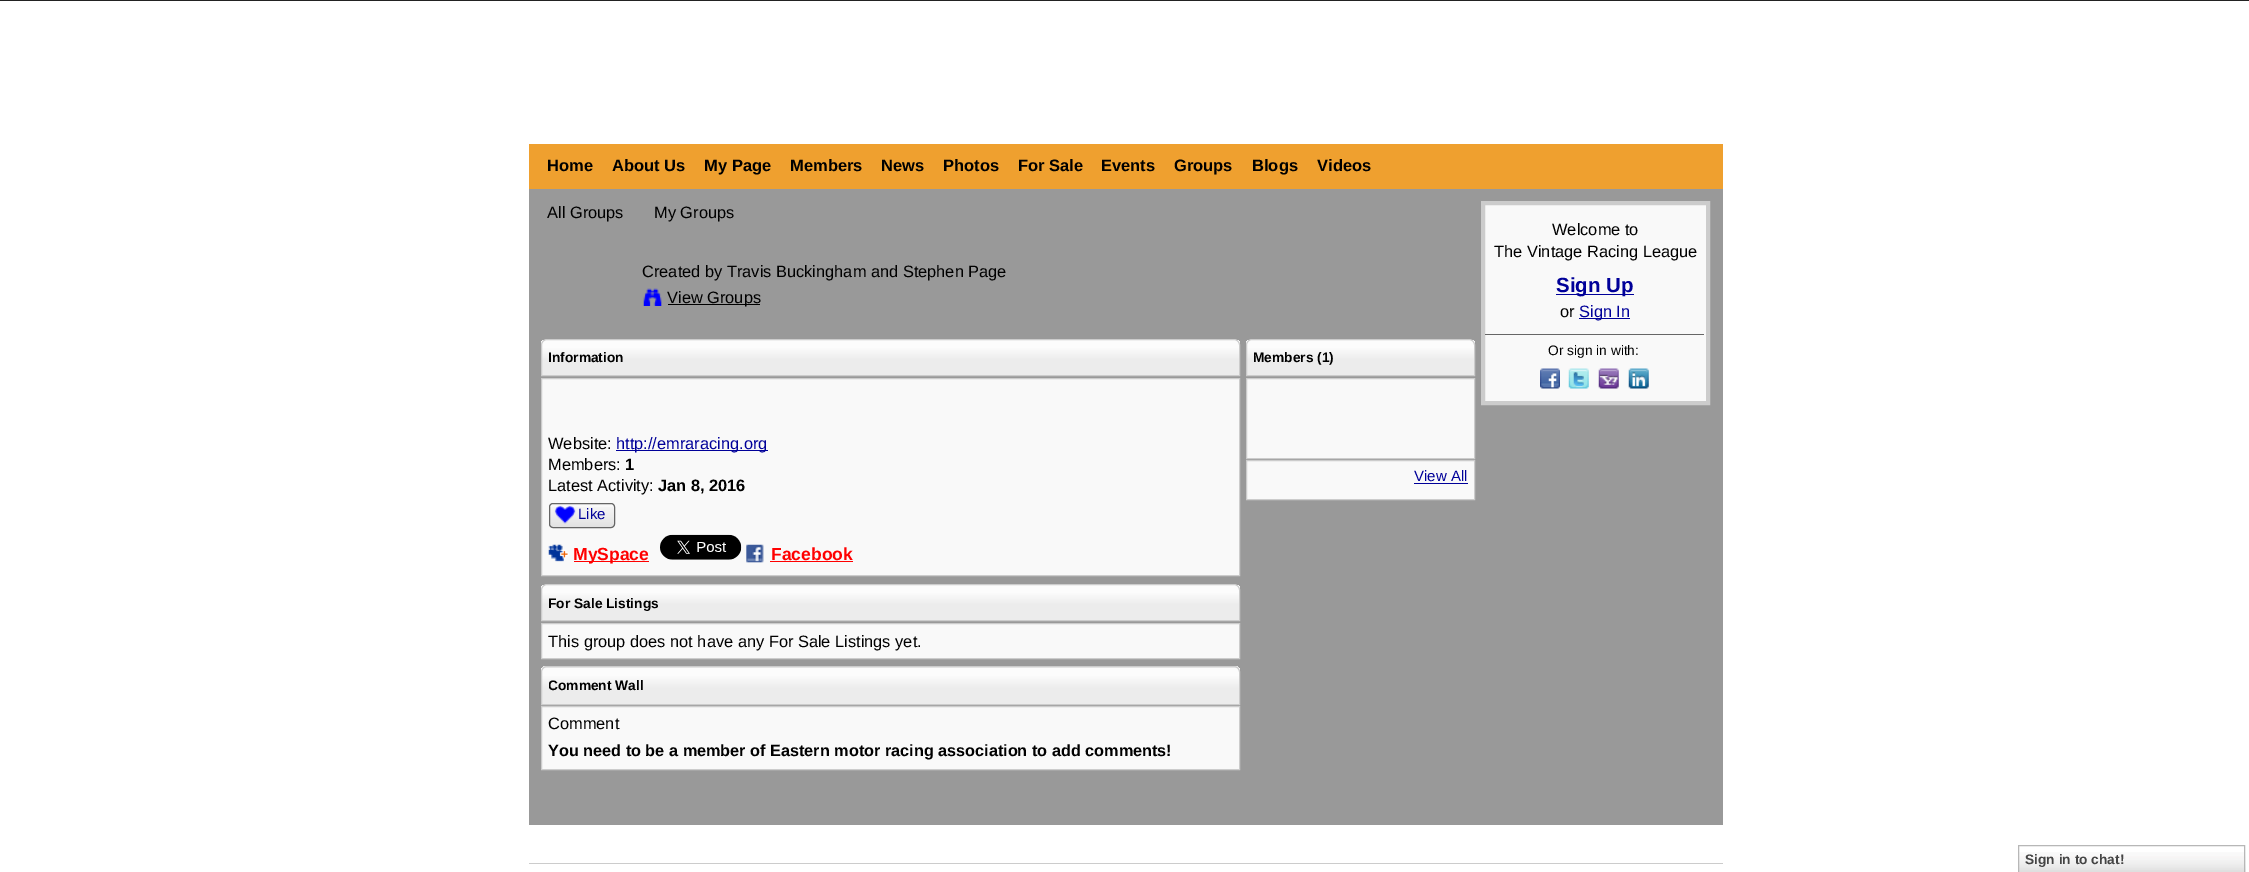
%!PS-Adobe-3.0
%%BoundingBox: 0 0 2249 872
%%LanguageLevel: 3
%%Pages: 1
%%EndComments
%%BeginProlog
/setink { dup -16 bitshift 255 div exch dup -8 bitshift 255 and 255 div exch 255 and 255 div setrgbcolor } def
/usefont { [ exch dup neg 0 0 3 -1 roll 0 0 ] selectfont } def
/rrect { 5 dict begin { /r /h /w /y /x } { exch def } forall
  x r add y moveto x w add y 2 copy h add r arct x w add y h add x 1 index r arct
  x y h add x y r arct x y 2 copy exch w add exch r arct closepath end } def
/drawimage { 5 dict begin { /h /w /y /x /name } { exch def } forall
  gsave x y translate w h scale
  w h 8 [w 0 0 h 0 0] name (r) file false 3 colorimage grestore end } def
%%EndProlog
%%BeginSetup
<< /PageSize [2249 872] >> setpagedevice
%%EndSetup
%%Page: 1 1
0 872 translate 1 -1 scale
4 setmiterlimit
16#FFFFFF setink
0 0 2249 872 rectfill
16#222222 setink
0 0 2249 1 rectfill
16#EFA02F setink
529 144 1194 45 rectfill
/LiberationSans-Bold 16.5 usefont
16#000000 setink
[
    [(Home) 547 171]
    [(About Us) 612 171]
    [(My Page) 704 171]
    [(Members) 790 171]
    [(News) 881 171]
    [(Photos) 943 171]
    [(For Sale) 1018 171]
    [(Events) 1101 171]
    [(Groups) 1174 171]
    [(Blogs) 1252 171]
    [(Videos) 1317 171]
] { aload pop moveto show } forall
16#999999 setink
529 189 1194 636 rectfill
/LiberationSans-Regular 16.4 usefont
16#000000 setink
[
    [(All Groups) 547 218]
    [(My Groups) 654 218]
    [(Created by Travis Buckingham and Stephen Page) 642 277]
] { aload pop moveto show } forall
(img1.raw) 643 288 19 18 drawimage
668 304 92 1 rectfill
667 303 moveto (View Groups) show
gsave
547 339 moveto 1234 339 lineto 1237.5 339 1240 341.5 1240 345 curveto 1240 376 lineto 541 376 lineto 541 345 lineto 541 341.5 543.5 339 547 339 curveto closepath clip newpath
gsave 541 340 moveto 1240 340 lineto 1240 375 lineto 541 375 lineto closepath clip newpath
<< /ShadingType 2 /ColorSpace /DeviceRGB /Coords [543 340 543 375] /Extend [true true] /Function << /FunctionType 3 /Domain [0 1] /Functions [<< /FunctionType 2 /Domain [0 1] /C0 [0.988 0.988 0.988] /C1 [0.988 0.988 0.988] /N 1 >> << /FunctionType 2 /Domain [0 1] /C0 [0.988 0.988 0.988] /C1 [0.925 0.925 0.925] /N 1 >> << /FunctionType 2 /Domain [0 1] /C0 [0.925 0.925 0.925] /C1 [0.925 0.925 0.925] /N 1 >>] /Bounds [0.21 0.57] /Encode [0 1 0 1 0 1] >> >> shfill grestore
grestore
16#CCCCCC setink
547 339.5 moveto 1234 339.5 lineto 1237 339.5 1239.5 342 1239.5 345 curveto 1239.5 375.5 lineto 541.5 375.5 lineto 541.5 345 lineto 541.5 342 544 339.5 547 339.5 curveto closepath stroke
/LiberationSans-Bold 13.75 usefont
16#000000 setink
548 362 moveto (Information) show
16#F9F9F9 setink
541.5 378.5 moveto 1239.5 378.5 lineto 1239.5 575.5 lineto 541.5 575.5 lineto closepath gsave fill grestore
16#CCCCCC setink
stroke
/LiberationSans-Regular 16.4 usefont
16#000000 setink
548 449 moveto (Website:) show
16#000099 setink
616 450 152 1 rectfill
616 449 moveto (http://emraracing.org) show
16#000000 setink
548 470 moveto (Members:) show
/LiberationSans-Bold 16.4 usefont
625 470 moveto (1) show
/LiberationSans-Regular 16.4 usefont
548 491 moveto (Latest Activity:) show
/LiberationSans-Bold 16.4 usefont
658 491 moveto (Jan 8, 2016) show
(img2.raw) 549 507 66 20 drawimage
16#666666 setink
549.5 503.5 65 24 3.5 rrect stroke
(img3.raw) 554 505 22 19 drawimage
/LiberationSans-Regular 15 usefont
16#000099 setink
578 519 moveto (Like) show
(img4.raw) 548 544 21 18 drawimage
16#FF0000 setink
574 561 75 1 rectfill
/LiberationSans-Bold 17.5 usefont
573 560 moveto (MySpace) show
(img5.raw) 660 534 82 26 drawimage
(img6.raw) 746 544 18 19 drawimage
771 560 moveto (Facebook) show
770 561 83 1 rectfill
gsave
547 584 moveto 1234 584 lineto 1237.5 584 1240 586.5 1240 590 curveto 1240 621 lineto 541 621 lineto 541 590 lineto 541 586.5 543.5 584 547 584 curveto closepath clip newpath
gsave 541 585 moveto 1240 585 lineto 1240 620 lineto 541 620 lineto closepath clip newpath
<< /ShadingType 2 /ColorSpace /DeviceRGB /Coords [543 585 543 620] /Extend [true true] /Function << /FunctionType 3 /Domain [0 1] /Functions [<< /FunctionType 2 /Domain [0 1] /C0 [0.988 0.988 0.988] /C1 [0.988 0.988 0.988] /N 1 >> << /FunctionType 2 /Domain [0 1] /C0 [0.988 0.988 0.988] /C1 [0.925 0.925 0.925] /N 1 >> << /FunctionType 2 /Domain [0 1] /C0 [0.925 0.925 0.925] /C1 [0.925 0.925 0.925] /N 1 >>] /Bounds [0.21 0.57] /Encode [0 1 0 1 0 1] >> >> shfill grestore
grestore
16#CCCCCC setink
547 584.5 moveto 1234 584.5 lineto 1237 584.5 1239.5 587 1239.5 590 curveto 1239.5 620.5 lineto 541.5 620.5 lineto 541.5 590 lineto 541.5 587 544 584.5 547 584.5 curveto closepath stroke
/LiberationSans-Bold 13.75 usefont
16#000000 setink
548 608 moveto (For Sale Listings) show
16#F9F9F9 setink
541.5 623.5 moveto 1239.5 623.5 lineto 1239.5 658.5 lineto 541.5 658.5 lineto closepath gsave fill grestore
16#CCCCCC setink
stroke
/LiberationSans-Regular 16.4 usefont
16#000000 setink
548 647 moveto (This group does not have any For Sale Listings yet.) show
gsave
547 666 moveto 1234 666 lineto 1237.5 666 1240 668.5 1240 672 curveto 1240 705 lineto 541 705 lineto 541 672 lineto 541 668.5 543.5 666 547 666 curveto closepath clip newpath
gsave 541 666 moveto 1240 666 lineto 1240 668 lineto 541 668 lineto closepath clip newpath
<< /ShadingType 2 /ColorSpace /DeviceRGB /Coords [543 631 543 668] /Extend [true true] /Function << /FunctionType 3 /Domain [0 1] /Functions [<< /FunctionType 2 /Domain [0 1] /C0 [0.988 0.988 0.988] /C1 [0.988 0.988 0.988] /N 1 >> << /FunctionType 2 /Domain [0 1] /C0 [0.988 0.988 0.988] /C1 [0.925 0.925 0.925] /N 1 >> << /FunctionType 2 /Domain [0 1] /C0 [0.925 0.925 0.925] /C1 [0.925 0.925 0.925] /N 1 >>] /Bounds [0.21 0.57] /Encode [0 1 0 1 0 1] >> >> shfill grestore
gsave 541 668 moveto 1240 668 lineto 1240 704 lineto 541 704 lineto closepath clip newpath
<< /ShadingType 2 /ColorSpace /DeviceRGB /Coords [543 668 543 704] /Extend [true true] /Function << /FunctionType 3 /Domain [0 1] /Functions [<< /FunctionType 2 /Domain [0 1] /C0 [0.988 0.988 0.988] /C1 [0.988 0.988 0.988] /N 1 >> << /FunctionType 2 /Domain [0 1] /C0 [0.988 0.988 0.988] /C1 [0.925 0.925 0.925] /N 1 >> << /FunctionType 2 /Domain [0 1] /C0 [0.925 0.925 0.925] /C1 [0.925 0.925 0.925] /N 1 >>] /Bounds [0.21 0.57] /Encode [0 1 0 1 0 1] >> >> shfill grestore
grestore
16#CCCCCC setink
547 666.5 moveto 1234 666.5 lineto 1237 666.5 1239.5 669 1239.5 672 curveto 1239.5 704.5 lineto 541.5 704.5 lineto 541.5 672 lineto 541.5 669 544 666.5 547 666.5 curveto closepath stroke
gsave
549 676 94 19 rectclip
/LiberationSans-Bold 13.75 usefont
16#000000 setink
548 690 moveto (Comment Wall) show
grestore
16#F9F9F9 setink
541.5 706.5 moveto 1239.5 706.5 lineto 1239.5 769.5 lineto 541.5 769.5 lineto closepath gsave fill grestore
16#CCCCCC setink
stroke
16#000000 setink
548 729 moveto (Comment) show
/LiberationSans-Bold 16.25 usefont
548 756 moveto (You need to be a member of Eastern motor racing association to add comments!) show
gsave
1252 339 moveto 1469 339 lineto 1472.5 339 1475 341.5 1475 345 curveto 1475 376 lineto 1246 376 lineto 1246 345 lineto 1246 341.5 1248.5 339 1252 339 curveto closepath clip newpath
gsave 1246 340 moveto 1475 340 lineto 1475 375 lineto 1246 375 lineto closepath clip newpath
<< /ShadingType 2 /ColorSpace /DeviceRGB /Coords [1248 340 1248 375] /Extend [true true] /Function << /FunctionType 3 /Domain [0 1] /Functions [<< /FunctionType 2 /Domain [0 1] /C0 [0.988 0.988 0.988] /C1 [0.988 0.988 0.988] /N 1 >> << /FunctionType 2 /Domain [0 1] /C0 [0.988 0.988 0.988] /C1 [0.925 0.925 0.925] /N 1 >> << /FunctionType 2 /Domain [0 1] /C0 [0.925 0.925 0.925] /C1 [0.925 0.925 0.925] /N 1 >>] /Bounds [0.21 0.57] /Encode [0 1 0 1 0 1] >> >> shfill grestore
grestore
16#CCCCCC setink
1252 339.5 moveto 1469 339.5 lineto 1472 339.5 1474.5 342 1474.5 345 curveto 1474.5 375.5 lineto 1246.5 375.5 lineto 1246.5 345 lineto 1246.5 342 1249 339.5 1252 339.5 curveto closepath stroke
/LiberationSans-Bold 13.75 usefont
16#000000 setink
1253 362 moveto (Members \(1\)) show
16#F9F9F9 setink
1246.5 378.5 moveto 1474.5 378.5 lineto 1474.5 458.5 lineto 1246.5 458.5 lineto closepath gsave fill grestore
16#CCCCCC setink
stroke
16#F9F9F9 setink
1246.5 460.5 moveto 1474.5 460.5 lineto 1474.5 499.5 lineto 1246.5 499.5 lineto closepath gsave fill grestore
16#CCCCCC setink
stroke
/LiberationSans-Regular 15 usefont
16#000099 setink
1414 481 moveto (View All) show
1414 483 54 1 rectfill
16#F9F9F9 setink
1483 203 moveto 1708 203 lineto 1708 403 lineto 1483 403 lineto closepath gsave fill grestore
16#CCCCCC setink
4 setlinewidth
stroke
/LiberationSans-Regular 16.4 usefont
16#000000 setink
1552 235 moveto (Welcome to) show
1494 257 moveto (The Vintage Racing League) show
16#000099 setink
1556 294 78 1 rectfill
/LiberationSans-Bold 20.5 usefont
1556 292 moveto (Sign Up) show
/LiberationSans-Regular 16.4 usefont
16#000000 setink
1560 317 moveto (or) show
16#000099 setink
1579 318 51 1 rectfill
1579 317 moveto (Sign In) show
16#666666 setink
1485 334 219 1 rectfill
/LiberationSans-Regular 13.75 usefont
16#000000 setink
1548 355 moveto (Or sign in with:) show
(img7.raw) 1540 368 20 21 drawimage
(img8.raw) 1568 368 21 21 drawimage
(img9.raw) 1598 368 21 21 drawimage
(img10.raw) 1628 368 21 21 drawimage
16#CCCCCC setink
529 863 1194 1 rectfill
(img11.raw) 2019 852 227 20 drawimage
16#B7B7B7 setink
1 setlinewidth
2018.5 845.5 226 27 rectstroke
/LiberationSans-Bold 13.75 usefont
16#454545 setink
2025 864 moveto (Sign in to chat!) show
showpage
%%EOF
